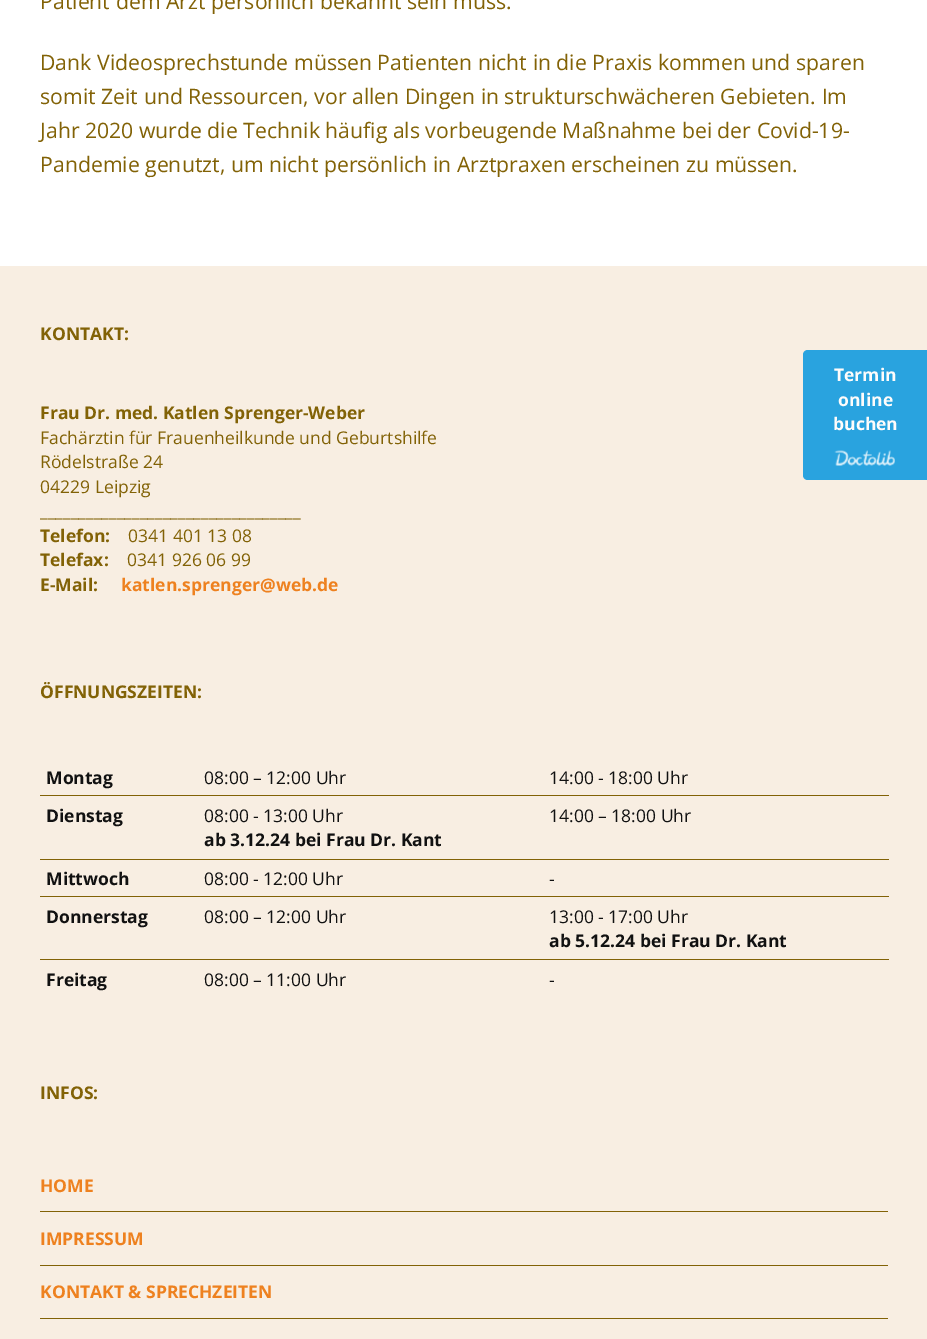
%!PS-Adobe-3.0
%%BoundingBox: 0 0 927 1339
%%LanguageLevel: 3
%%Pages: 1
%%EndComments
%%BeginProlog
/setink { dup -16 bitshift 255 div exch dup -8 bitshift 255 and 255 div exch 255 and 255 div setrgbcolor } def
/usefont { [ exch dup neg 0 0 3 -1 roll 0 0 ] selectfont } def
/drawimage { 5 dict begin { /h /w /y /x /name } { exch def } forall
  gsave x y translate w h scale
  w h 8 [w 0 0 h 0 0] name (r) file false 3 colorimage grestore end } def
%%EndProlog
%%BeginSetup
<< /PageSize [927 1339] >> setpagedevice
%%EndSetup
%%Page: 1 1
0 1339 translate 1 -1 scale
4 setmiterlimit
16#FFFFFF setink
0 0 927 1339 rectfill
/OpenSans-Regular 21.25 usefont
16#826206 setink
[
    [(Patient dem Arzt persönlich bekannt sein muss.) 40 9]
    [(Dank Videosprechstunde müssen Patienten nicht in die Praxis kommen und sparen) 40 70]
    [(somit Zeit und Ressourcen, vor allen Dingen in strukturschwächeren Gebieten. Im) 40 104]
    [(Jahr 2020 wurde die Technik häufig als vorbeugende Maßnahme bei der Covid-19-) 40 138]
    [(Pandemie genutzt, um nicht persönlich in Arztpraxen erscheinen zu müssen.) 40 172]
] { aload pop moveto show } forall
16#F8EEE2 setink
0 266 927 1073 rectfill
/OpenSans-Bold 17.5 usefont
16#826206 setink
40 340 moveto (KONTAKT:) show
40 419 moveto (Frau Dr. med. Katlen Sprenger-Weber) show
/OpenSans-Regular 17.5 usefont
[
    [(Fachärztin für Frauenheilkunde und Geburtshilfe) 40 444]
    [(Rödelstraße 24) 40 468]
    [(04229 Leipzig) 40 493]
    [(__________________________________) 40 517]
] { aload pop moveto show } forall
/OpenSans-Bold 17.5 usefont
40 542 moveto (Telefon:) show
/OpenSans-Regular 17.5 usefont
128 542 moveto (0341 401 13 08) show
/OpenSans-Bold 17.5 usefont
40 566 moveto (Telefax:) show
/OpenSans-Regular 17.5 usefont
127 566 moveto (0341 926 06 99) show
/OpenSans-Bold 17.5 usefont
40 591 moveto (E-Mail:) show
16#EE811F setink
121 591 moveto (katlen.sprenger@web.de) show
16#29A3DF setink
808 350 moveto 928 350 lineto 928 480 lineto 808 480 lineto 805 480 803 478 803 475 curveto 803 355 lineto 803 352 805 350 808 350 curveto closepath fill
16#FEFCFB setink
[
    [(Termin) 834 381]
    [(online) 838 406]
    [(buchen) 833 430]
] { aload pop moveto show } forall
(img1.raw) 834 450 61 16 drawimage
16#826206 setink
40 698 moveto (ÖFFNUNGSZEITEN:) show
16#111111 setink
46 784 moveto (Montag) show
/OpenSans-Regular 17.5 usefont
204 784 moveto (08:00 – 12:00 Uhr) show
549 784 moveto (14:00 - 18:00 Uhr) show
/OpenSans-Bold 17.5 usefont
46 822 moveto (Dienstag) show
/OpenSans-Regular 17.5 usefont
204 822 moveto (08:00 - 13:00 Uhr) show
/OpenSans-Bold 17.5 usefont
204 846 moveto (ab 3.12.24 bei Frau Dr. Kant) show
16#826206 setink
40 795 849 1 rectfill
/OpenSans-Regular 17.5 usefont
16#111111 setink
549 822 moveto (14:00 – 18:00 Uhr) show
/OpenSans-Bold 17.5 usefont
46 885 moveto (Mittwoch) show
/OpenSans-Regular 17.5 usefont
204 885 moveto (08:00 - 12:00 Uhr) show
16#826206 setink
40 859 849 1 rectfill
16#111111 setink
549 885 moveto (-) show
/OpenSans-Bold 17.5 usefont
46 923 moveto (Donnerstag) show
/OpenSans-Regular 17.5 usefont
204 923 moveto (08:00 – 12:00 Uhr) show
16#826206 setink
40 896 849 1 rectfill
16#111111 setink
549 923 moveto (13:00 - 17:00 Uhr) show
/OpenSans-Bold 17.5 usefont
549 947 moveto (ab 5.12.24 bei Frau Dr. Kant) show
46 986 moveto (Freitag) show
/OpenSans-Regular 17.5 usefont
204 986 moveto (08:00 – 11:00 Uhr) show
16#826206 setink
40 959 849 1 rectfill
16#111111 setink
549 986 moveto (-) show
/OpenSans-Bold 17.5 usefont
16#826206 setink
40 1099 moveto (INFOS:) show
40 1211 848 1 rectfill
16#EE811F setink
40 1192 moveto (HOME) show
16#826206 setink
40 1265 848 1 rectfill
16#EE811F setink
40 1245 moveto (IMPRESSUM) show
16#826206 setink
40 1318 848 1 rectfill
16#EE811F setink
40 1298 moveto (KONTAKT & SPRECHZEITEN) show
showpage
%%EOF
